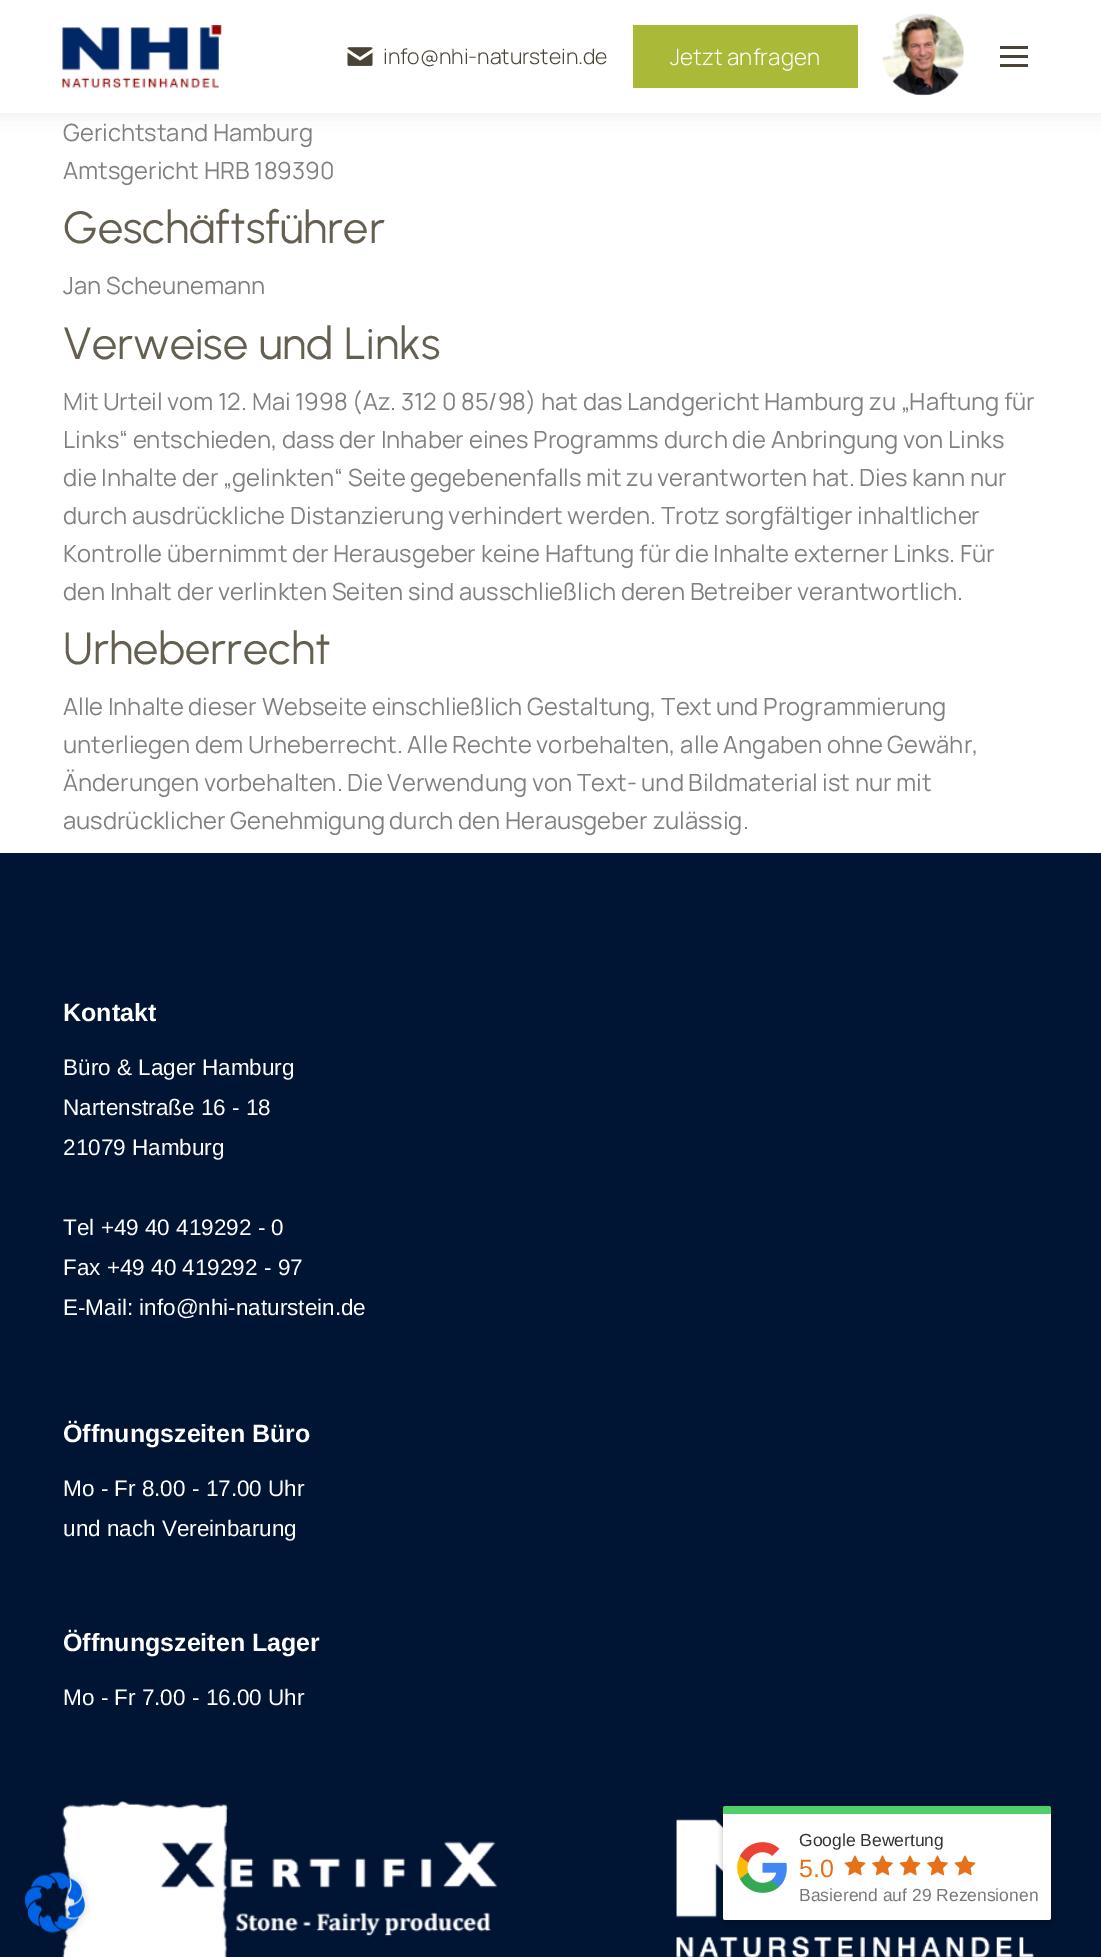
%!PS-Adobe-3.0
%%BoundingBox: 0 0 1101 1957
%%LanguageLevel: 3
%%Pages: 1
%%EndComments
%%BeginProlog
/setink { dup -16 bitshift 255 div exch dup -8 bitshift 255 and 255 div exch 255 and 255 div setrgbcolor } def
/usefont { [ exch dup neg 0 0 3 -1 roll 0 0 ] selectfont } def
/setalpha { dup .setfillconstantalpha .setstrokeconstantalpha } def
/rrect { 5 dict begin { /r /h /w /y /x } { exch def } forall
  x r add y moveto x w add y 2 copy h add r arct x w add y h add x 1 index r arct
  x y h add x y r arct x y 2 copy exch w add exch r arct closepath end } def
/softshadow { 12 dict begin { /a /b /q /h /w /y /x } { exch def } forall gsave /was 0 def
  9 -2 -9 { dup b mul 4 div /e exch def 1 sub .425 mul 2.718 exch exp 1 add a .99 .min exch div /now exch def
    1 1 now sub 1 was sub div sub setalpha /was now def
    w h .min e 2 mul add 0 gt { x e sub y e sub w e 2 mul add h e 2 mul add
      q e add b .6 mul add w h .min 2 div e add .min 0 .max rrect fill } if } for grestore end } def
/drawimage { 5 dict begin { /h /w /y /x /name } { exch def } forall
  gsave x y translate w h scale
  w h 8 [w 0 0 h 0 0] name (r) file false 3 colorimage grestore end } def
%%EndProlog
%%BeginSetup
<< /PageSize [1101 1957] /PageUsesTransparency true >> setpagedevice
%%EndSetup
%%Page: 1 1
0 .pushpdf14devicefilter
0 1957 translate 1 -1 scale
4 setmiterlimit
16#FFFFFF setink
0 0 1101 1957 rectfill
16#000000 setink
-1 -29 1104 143 0 9.5 0.07 softshadow
16#FFFFFF setink
0 0 1101 113 rectfill
(img1.raw) 62 25 160 63 drawimage
(img2.raw) 347 47 26 19 drawimage
/Manrope-Light 21.25 usefont
16#4A4436 setink
383 64 moveto (info@nhi-naturstein.de) show
16#ABB939 setink
633 25 225 63 rectfill
/Manrope-Light 22.5 usefont
16#FFFFFF setink
670 65 moveto (Jetzt anfragen) show
(img3.raw) 882 13 82 83 drawimage
[
    [1000 46 28 3 16#4A4436]
    [1000 55 28 3 16#4A4436]
    [1000 64 28 3 16#4A4436]
] { aload pop setink rectfill } forall
/Manrope-Regular 23.75 usefont
16#808080 setink
63 141 moveto (Gerichtstand Hamburg) show
63 179 moveto (Amtsgericht HRB 189390) show
/Urbanist-Regular 45 usefont
16#645F51 setink
63 243 moveto (Geschäftsführer) show
/Manrope-Regular 23.75 usefont
16#808080 setink
63 294 moveto (Jan Scheunemann) show
/Urbanist-Regular 45 usefont
16#645F51 setink
63 359 moveto (Verweise und Links) show
/Manrope-Regular 23.75 usefont
16#808080 setink
[
    [(Mit Urteil vom 12. Mai 1998 \(Az. 312 0 85/98\) hat das Landgericht Hamburg zu „Haftung für) 63 410]
    [(Links“ entschieden, dass der Inhaber eines Programms durch die Anbringung von Links) 63 448]
    [(die Inhalte der „gelinkten“ Seite gegebenenfalls mit zu verantworten hat. Dies kann nur) 63 486]
    [(durch ausdrückliche Distanzierung verhindert werden. Trotz sorgfältiger inhaltlicher) 63 524]
    [(Kontrolle übernimmt der Herausgeber keine Haftung für die Inhalte externer Links. Für) 63 562]
    [(den Inhalt der verlinkten Seiten sind ausschließlich deren Betreiber verantwortlich.) 63 600]
] { aload pop moveto show } forall
/Urbanist-Regular 45 usefont
16#645F51 setink
63 664 moveto (Urheberrecht) show
/Manrope-Regular 23.75 usefont
16#808080 setink
[
    [(Alle Inhalte dieser Webseite einschließlich Gestaltung, Text und Programmierung) 63 715]
    [(unterliegen dem Urheberrecht. Alle Rechte vorbehalten, alle Angaben ohne Gewähr,) 63 753]
    [(Änderungen vorbehalten. Die Verwendung von Text- und Bildmaterial ist nur mit) 63 791]
    [(ausdrücklicher Genehmigung durch den Herausgeber zulässig.) 63 829]
] { aload pop moveto show } forall
16#001433 setink
0 853 1101 1104 rectfill
/LiberationSans-Bold 25 usefont
16#FFFFFF setink
63 1021 moveto (Kontakt) show
/LiberationSans-Regular 22.5 usefont
[
    [(Büro & Lager Hamburg) 63 1075]
    [(Nartenstraße 16 - 18) 63 1115]
    [(21079 Hamburg) 63 1155]
    [(Tel +49 40 419292 - 0) 63 1235]
    [(Fax +49 40 419292 - 97) 63 1275]
    [(E-Mail: info@nhi-naturstein.de) 63 1315]
] { aload pop moveto show } forall
/LiberationSans-Bold 25 usefont
63 1442 moveto (Öffnungszeiten Büro) show
/LiberationSans-Regular 22.5 usefont
63 1496 moveto (Mo - Fr 8.00 - 17.00 Uhr) show
63 1536 moveto (und nach Vereinbarung) show
/LiberationSans-Bold 25 usefont
63 1651 moveto (Öffnungszeiten Lager) show
/LiberationSans-Regular 22.5 usefont
63 1705 moveto (Mo - Fr 7.00 - 16.00 Uhr) show
(img4.raw) 62 1801 972 156 drawimage
(img5.raw) 25 1871 65 64 drawimage
16#000000 setink
723 1809 328 114 2.5 3 0.26 softshadow
16#4FCE6A setink
725.5 1806 moveto 1048.5 1806 lineto 1050 1806 1051 1807 1051 1808.5 curveto 1051 1814 lineto 723 1814 lineto 723 1808.5 lineto 723 1807 724 1806 725.5 1806 curveto closepath fill
16#FFFFFF setink
723 1814 moveto 1051 1814 lineto 1051 1917.5 lineto 1051 1919 1050 1920 1048.5 1920 curveto 725.5 1920 lineto 724 1920 723 1919 723 1917.5 curveto closepath fill
(img6.raw) 737 1842 50 51 drawimage
/LiberationSans-Regular 17.5 usefont
16#333333 setink
799 1846 moveto (Google Bewertung) show
/LiberationSans-Regular 25 usefont
16#E7711B setink
799 1877 moveto (5.0) show
(img7.raw) 844 1855 22 21 drawimage
(img8.raw) 872 1855 21 21 drawimage
(img7.raw) 899 1855 22 21 drawimage
(img8.raw) 927 1855 21 21 drawimage
(img7.raw) 954 1855 22 21 drawimage
/LiberationSans-Regular 17.5 usefont
16#777777 setink
799 1901 moveto (Basierend auf 29 Rezensionen) show
.poppdf14devicefilter showpage
%%EOF
